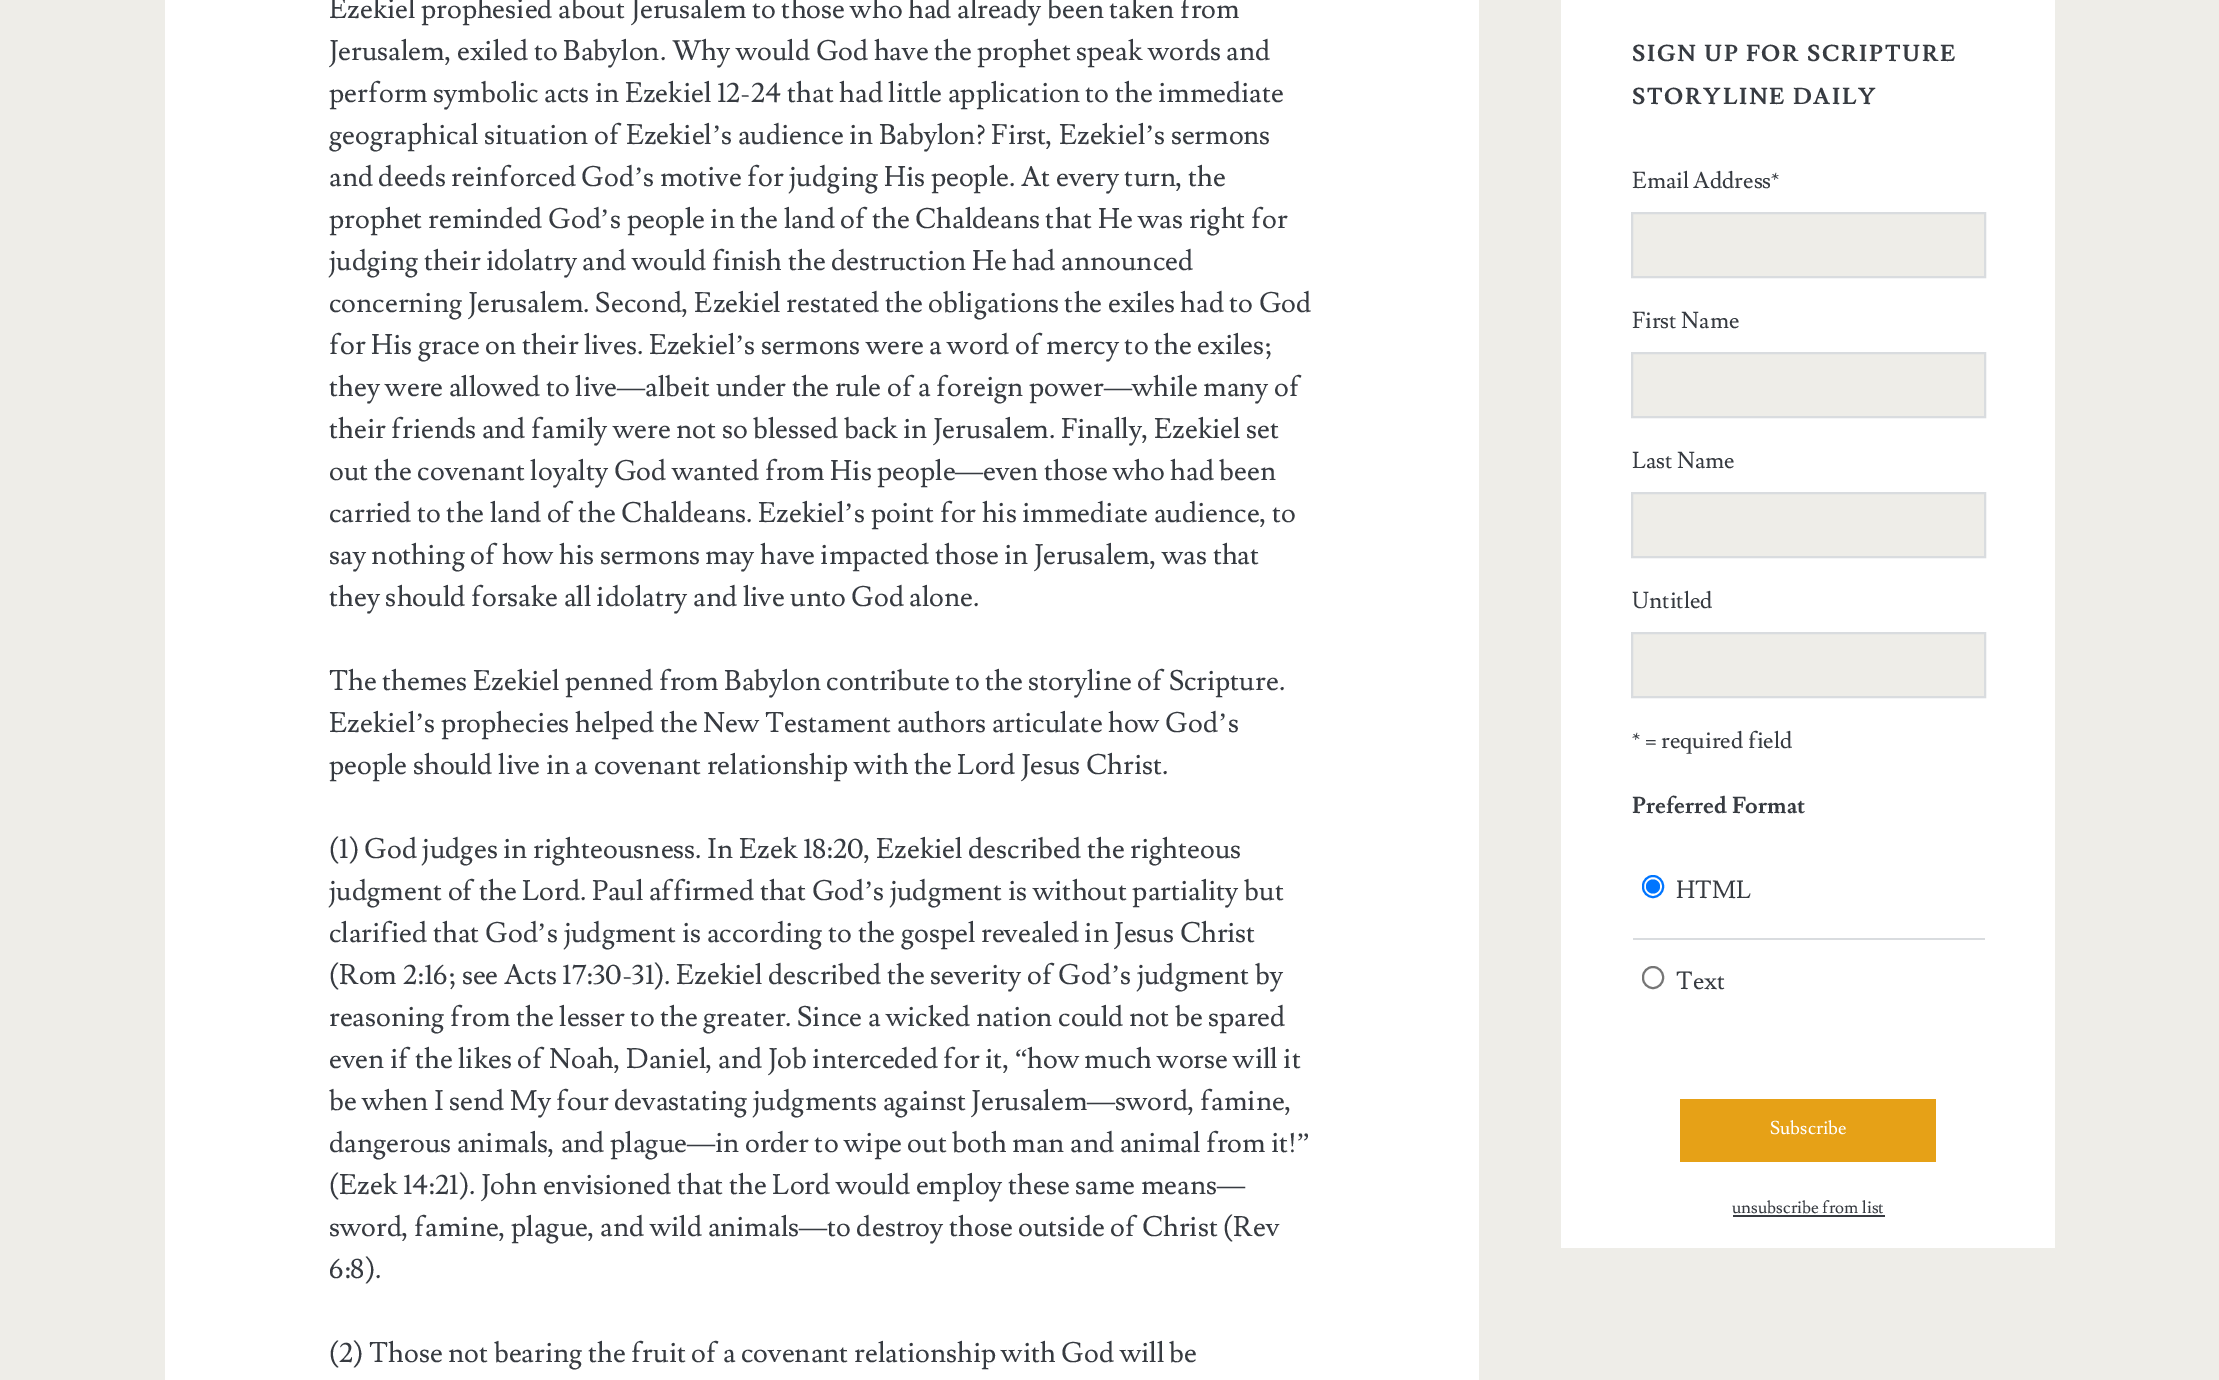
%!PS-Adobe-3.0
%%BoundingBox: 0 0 2219 1380
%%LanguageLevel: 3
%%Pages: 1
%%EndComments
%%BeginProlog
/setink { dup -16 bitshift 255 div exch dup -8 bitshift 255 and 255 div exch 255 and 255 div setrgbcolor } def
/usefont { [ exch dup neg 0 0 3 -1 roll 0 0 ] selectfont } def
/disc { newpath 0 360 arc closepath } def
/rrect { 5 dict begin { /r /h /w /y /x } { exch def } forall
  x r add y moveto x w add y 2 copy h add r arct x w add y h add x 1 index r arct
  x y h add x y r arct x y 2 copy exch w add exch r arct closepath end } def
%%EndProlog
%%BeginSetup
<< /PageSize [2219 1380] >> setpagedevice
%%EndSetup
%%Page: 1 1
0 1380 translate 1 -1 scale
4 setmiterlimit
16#EEEDE8 setink
0 0 2219 1380 rectfill
16#FFFFFF setink
165 0 1314 1380 rectfill
/Lusitana-Regular 28 usefont
16#373B41 setink
[
    [(Ezekiel prophesied about Jerusalem to those who had already been taken from) 329 18]
    [(Jerusalem, exiled to Babylon. Why would God have the prophet speak words and) 329 60]
    [(perform symbolic acts in Ezekiel 12-24 that had little application to the immediate) 329 102]
    [(geographical situation of Ezekiel) 329 144]
] { aload pop moveto show } forall
/LiberationSerif-Regular 28 usefont
712 144 moveto (’) show
/Lusitana-Regular 28 usefont
721 144 moveto (s audience in Babylon? First, Ezekiel) show
/LiberationSerif-Regular 28 usefont
1145 144 moveto (’) show
/Lusitana-Regular 28 usefont
1154 144 moveto (s sermons) show
329 186 moveto (and deeds reinforced God) show
/LiberationSerif-Regular 28 usefont
634 186 moveto (’) show
/Lusitana-Regular 28 usefont
643 186 moveto (s motive for judging His people. At every turn, the) show
329 228 moveto (prophet reminded God) show
/LiberationSerif-Regular 28 usefont
600 228 moveto (’) show
/Lusitana-Regular 28 usefont
[
    [(s people in the land of the Chaldeans that He was right for) 610 228]
    [(judging their idolatry and would finish the destruction He had announced) 329 270]
    [(concerning Jerusalem. Second, Ezekiel restated the obligations the exiles had to God) 329 312]
    [(for His grace on their lives. Ezekiel) 329 354]
] { aload pop moveto show } forall
/LiberationSerif-Regular 28 usefont
735 354 moveto (’) show
/Lusitana-Regular 28 usefont
744 354 moveto (s sermons were a word of mercy to the exiles;) show
329 396 moveto (they were allowed to live) show
/LiberationSerif-Regular 28 usefont
617 396 moveto (—) show
/Lusitana-Regular 28 usefont
645 396 moveto (albeit under the rule of a foreign power) show
/LiberationSerif-Regular 28 usefont
1104 396 moveto (—) show
/Lusitana-Regular 28 usefont
[
    [(while many of) 1132 396]
    [(their friends and family were not so blessed back in Jerusalem. Finally, Ezekiel set) 329 438]
    [(out the covenant loyalty God wanted from His people) 329 480]
] { aload pop moveto show } forall
/LiberationSerif-Regular 28 usefont
955 480 moveto (—) show
/Lusitana-Regular 28 usefont
983 480 moveto (even those who had been) show
329 522 moveto (carried to the land of the Chaldeans. Ezekiel) show
/LiberationSerif-Regular 28 usefont
844 522 moveto (’) show
/Lusitana-Regular 28 usefont
[
    [(s point for his immediate audience, to) 854 522]
    [(say nothing of how his sermons may have impacted those in Jerusalem, was that) 329 564]
    [(they should forsake all idolatry and live unto God alone.) 329 606]
    [(The themes Ezekiel penned from Babylon contribute to the storyline of Scripture.) 329 690]
    [(Ezekiel) 329 732]
] { aload pop moveto show } forall
/LiberationSerif-Regular 28 usefont
415 732 moveto (’) show
/Lusitana-Regular 28 usefont
424 732 moveto (s prophecies helped the New Testament authors articulate how God) show
/LiberationSerif-Regular 28 usefont
1218 732 moveto (’) show
/Lusitana-Regular 28 usefont
[
    [(s) 1228 732]
    [(people should live in a covenant relationship with the Lord Jesus Christ.) 329 774]
    [(\(1\) God judges in righteousness. In Ezek 18:20, Ezekiel described the righteous) 329 858]
    [(judgment of the Lord. Paul affirmed that God) 329 900]
] { aload pop moveto show } forall
/LiberationSerif-Regular 28 usefont
864 900 moveto (’) show
/Lusitana-Regular 28 usefont
873 900 moveto (s judgment is without partiality but) show
329 942 moveto (clarified that God) show
/LiberationSerif-Regular 28 usefont
537 942 moveto (’) show
/Lusitana-Regular 28 usefont
547 942 moveto (s judgment is according to the gospel revealed in Jesus Christ) show
329 984 moveto (\(Rom 2:16; see Acts 17:30-31\). Ezekiel described the severity of God) show
/LiberationSerif-Regular 28 usefont
1111 984 moveto (’) show
/Lusitana-Regular 28 usefont
[
    [(s judgment by) 1120 984]
    [(reasoning from the lesser to the greater. Since a wicked nation could not be spared) 329 1026]
    [(even if the likes of Noah, Daniel, and Job interceded for it,) 329 1068]
] { aload pop moveto show } forall
/LiberationSerif-Regular 28 usefont
1015 1068 moveto (“) show
/Lusitana-Regular 28 usefont
1027 1068 moveto (how much worse will it) show
329 1110 moveto (be when I send My four devastating judgments against Jerusalem) show
/LiberationSerif-Regular 28 usefont
1087 1110 moveto (—) show
/Lusitana-Regular 28 usefont
[
    [(sword, famine,) 1115 1110]
    [(dangerous animals, and plague) 329 1152]
    [(in order to wipe out both man and animal from it!) 715 1152]
] { aload pop moveto show } forall
/LiberationSerif-Regular 28 usefont
1297 1152 moveto (”) show
687 1152 moveto (—) show
/Lusitana-Regular 28 usefont
329 1194 moveto (\(Ezek 14:21\). John envisioned that the Lord would employ these same means) show
/LiberationSerif-Regular 28 usefont
1217 1194 moveto (—) show
/Lusitana-Regular 28 usefont
329 1236 moveto (sword, famine, plague, and wild animals) show
/LiberationSerif-Regular 28 usefont
799 1236 moveto (—) show
/Lusitana-Regular 28 usefont
[
    [(to destroy those outside of Christ \(Rev) 827 1236]
    [(6:8\).) 329 1278]
    [(\(2\) Those not bearing the fruit of a covenant relationship with God will be) 329 1362]
] { aload pop moveto show } forall
16#FFFFFF setink
1561 0 494 1248 rectfill
/Lusitana-Bold 22.75 usefont
16#373B41 setink
1632 61 moveto 1.8 0 (SIGN UP FOR SCRIPTURE) ashow
1632 104 moveto 1.8 0 (STORYLINE DAILY) ashow
/Lusitana-Regular 22.75 usefont
1632 188 moveto (Email Address*) show
16#EEEDE8 setink
1632 213 moveto 1985 213 lineto 1985 277 lineto 1632 277 lineto closepath gsave fill grestore
16#D9DCDF setink
2 setlinewidth
stroke
16#373B41 setink
1632 328 moveto (First Name) show
16#EEEDE8 setink
1632 353 moveto 1985 353 lineto 1985 417 lineto 1632 417 lineto closepath gsave fill grestore
16#D9DCDF setink
stroke
16#373B41 setink
1632 468 moveto (Last Name) show
16#EEEDE8 setink
1632 493 moveto 1985 493 lineto 1985 557 lineto 1632 557 lineto closepath gsave fill grestore
16#D9DCDF setink
stroke
16#373B41 setink
1632 608 moveto (Untitled) show
16#EEEDE8 setink
1632 633 moveto 1985 633 lineto 1985 697 lineto 1632 697 lineto closepath gsave fill grestore
16#D9DCDF setink
stroke
16#373B41 setink
1632 748 moveto (* = required field) show
/Lusitana-Bold 22.75 usefont
1632 813 moveto (Preferred Format) show
16#D9DCDF setink
1633 938 352 2 rectfill
16#0075FF setink
1643 876 20 21 10 rrect stroke
1653 886.5 7 disc fill
/Lusitana-Regular 24.5 usefont
16#373B41 setink
1676 898 moveto (HTML) show
16#767676 setink
1643 967 20 21 10 rrect stroke
16#373B41 setink
1676 989 moveto (Text) show
16#E6A117 setink
1680 1099 256 63 rectfill
/Lusitana-Regular 18.5 usefont
16#FFFFFF setink
1770 1134 moveto (Subscribe) show
/Lusitana-Regular 17 usefont
16#373B41 setink
1732 1213 moveto (unsubscribe from list) show
1733 1215 152 2 rectfill
showpage
%%EOF
